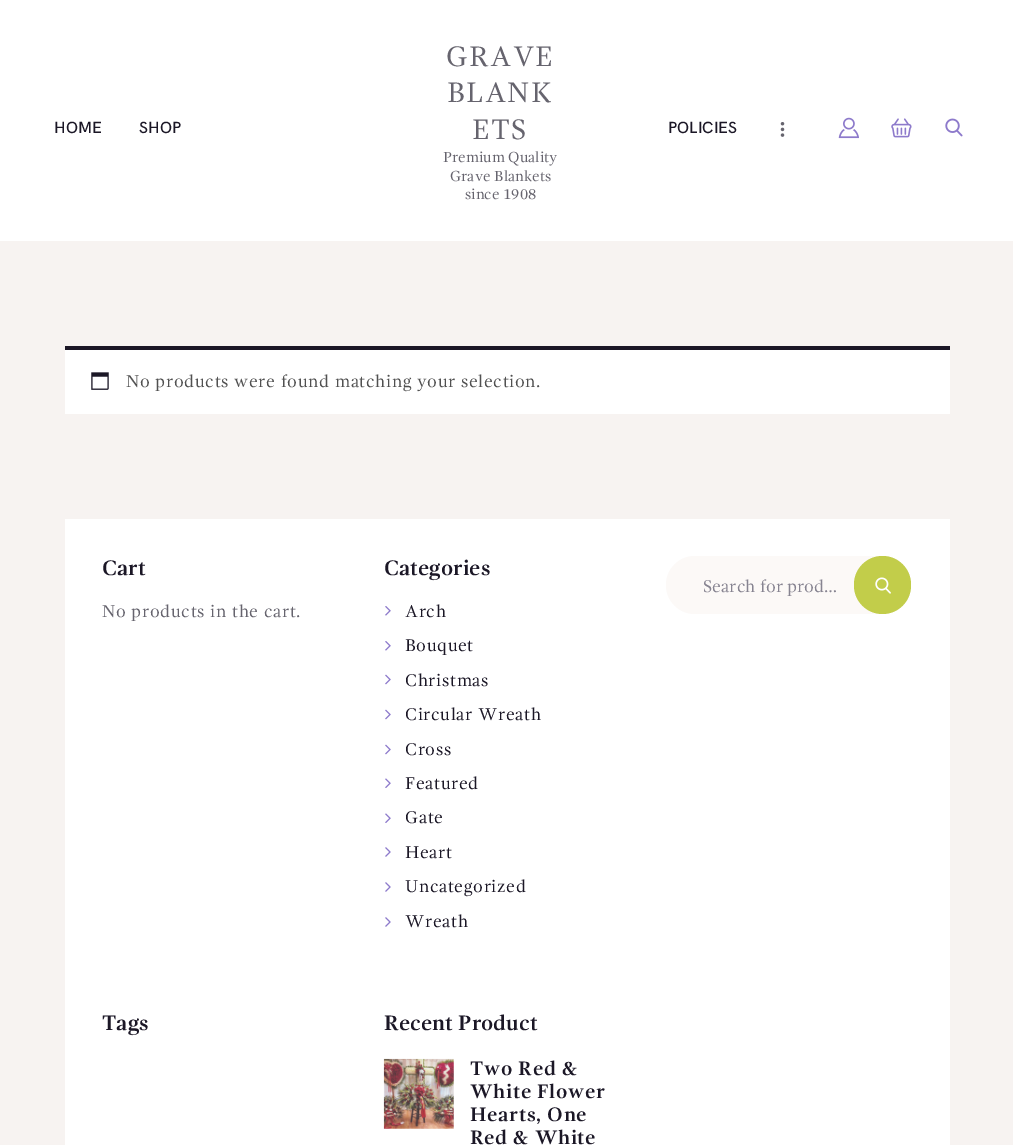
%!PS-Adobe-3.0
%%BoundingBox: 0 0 1013 1145
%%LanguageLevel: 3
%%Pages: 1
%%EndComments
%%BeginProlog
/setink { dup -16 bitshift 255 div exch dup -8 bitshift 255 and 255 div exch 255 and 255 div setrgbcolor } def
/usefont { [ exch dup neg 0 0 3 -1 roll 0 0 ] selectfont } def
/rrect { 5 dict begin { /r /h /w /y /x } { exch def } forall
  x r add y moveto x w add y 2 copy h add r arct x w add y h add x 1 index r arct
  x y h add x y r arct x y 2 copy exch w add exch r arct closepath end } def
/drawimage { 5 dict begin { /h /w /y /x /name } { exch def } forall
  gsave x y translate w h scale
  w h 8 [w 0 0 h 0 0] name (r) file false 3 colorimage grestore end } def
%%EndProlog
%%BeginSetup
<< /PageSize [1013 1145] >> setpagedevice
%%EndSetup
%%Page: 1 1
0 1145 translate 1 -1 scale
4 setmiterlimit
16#F7F3F1 setink
0 0 1013 1145 rectfill
16#FFFFFF setink
0 0 1013 241 rectfill
/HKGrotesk-Medium 16.25 usefont
16#1B1726 setink
54 133 moveto (HOME) show
139 133 moveto (SHOP) show
/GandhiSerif-Regular 29 usefont
16#66646E setink
446 66 moveto 1.25 0 (GRAVE) ashow
447 102 moveto 1.25 0 (BLANK) ashow
472 139 moveto 1.25 0 (ETS) ashow
/GandhiSerif-Regular 15 usefont
[
    [(Premium Quality) 443 162]
    [(Grave Blankets) 450 181]
    [(since 1908) 465 199]
] { aload pop moveto show } forall
/HKGrotesk-Medium 16.25 usefont
16#1B1726 setink
668 133 moveto (POLICIES) show
(img1.raw) 780 122 5 15 drawimage
(img2.raw) 838 117 21 22 drawimage
(img3.raw) 891 118 21 20 drawimage
(img4.raw) 945 118 18 19 drawimage
16#FFFFFF setink
65 350 885 64 rectfill
16#1B1726 setink
65 346 885 4 rectfill
(img5.raw) 91 372 18 18 drawimage
/GandhiSerif-Regular 17.5 usefont
16#515151 setink
126 387 moveto 0.6 0 (No products were found matching your selection.) ashow
16#FFFFFF setink
65 519 885 626 rectfill
/GandhiSerif-Bold 21.5 usefont
16#1B1726 setink
102 575 moveto (Cart) show
/GandhiSerif-Regular 17.5 usefont
16#66646E setink
102 617 moveto 0.6 0 (No products in the cart.) ashow
/GandhiSerif-Bold 21.5 usefont
16#1B1726 setink
384 575 moveto (Categories) show
(img6.raw) 385 606 6 10 drawimage
/GandhiSerif-Regular 17.5 usefont
405 617 moveto 0.6 0 (Arch) ashow
(img6.raw) 385 641 6 10 drawimage
405 651 moveto 0.6 0 (Bouquet) ashow
(img7.raw) 385 674 6 11 drawimage
405 686 moveto 0.6 0 (Christmas) ashow
(img7.raw) 385 709 6 11 drawimage
405 720 moveto 0.6 0 (Circular Wreath) ashow
(img7.raw) 385 744 6 11 drawimage
405 755 moveto 0.6 0 (Cross) ashow
(img8.raw) 385 778 6 10 drawimage
405 789 moveto 0.6 0 (Featured) ashow
(img8.raw) 385 813 6 10 drawimage
405 823 moveto 0.6 0 (Gate) ashow
(img9.raw) 385 847 6 10 drawimage
405 858 moveto 0.6 0 (Heart) ashow
(img9.raw) 385 882 6 10 drawimage
405 892 moveto 0.6 0 (Uncategorized) ashow
(img9.raw) 385 917 6 10 drawimage
405 927 moveto 0.6 0 (Wreath) ashow
16#FCF9F7 setink
666 556 245 58 29 rrect fill
16#C2CD4A setink
854 556 57 58 28.5 rrect fill
16#878491 setink
703 592 moveto (Search for prod…) show
(img10.raw) 875 577 16 17 drawimage
/GandhiSerif-Bold 21.5 usefont
16#1B1726 setink
102 1030 moveto (Tags) show
384 1030 moveto (Recent Product) show
(img11.raw) 383 1058 71 71 drawimage
/GandhiSerif-Bold 20 usefont
470 1075 moveto 0.6 0 (Two Red &) ashow
470 1098 moveto 0.6 0 (White Flower) ashow
470 1121 moveto 0.6 0 (Hearts, One) ashow
470 1144 moveto 0.6 0 (Red & White) ashow
showpage
%%EOF
